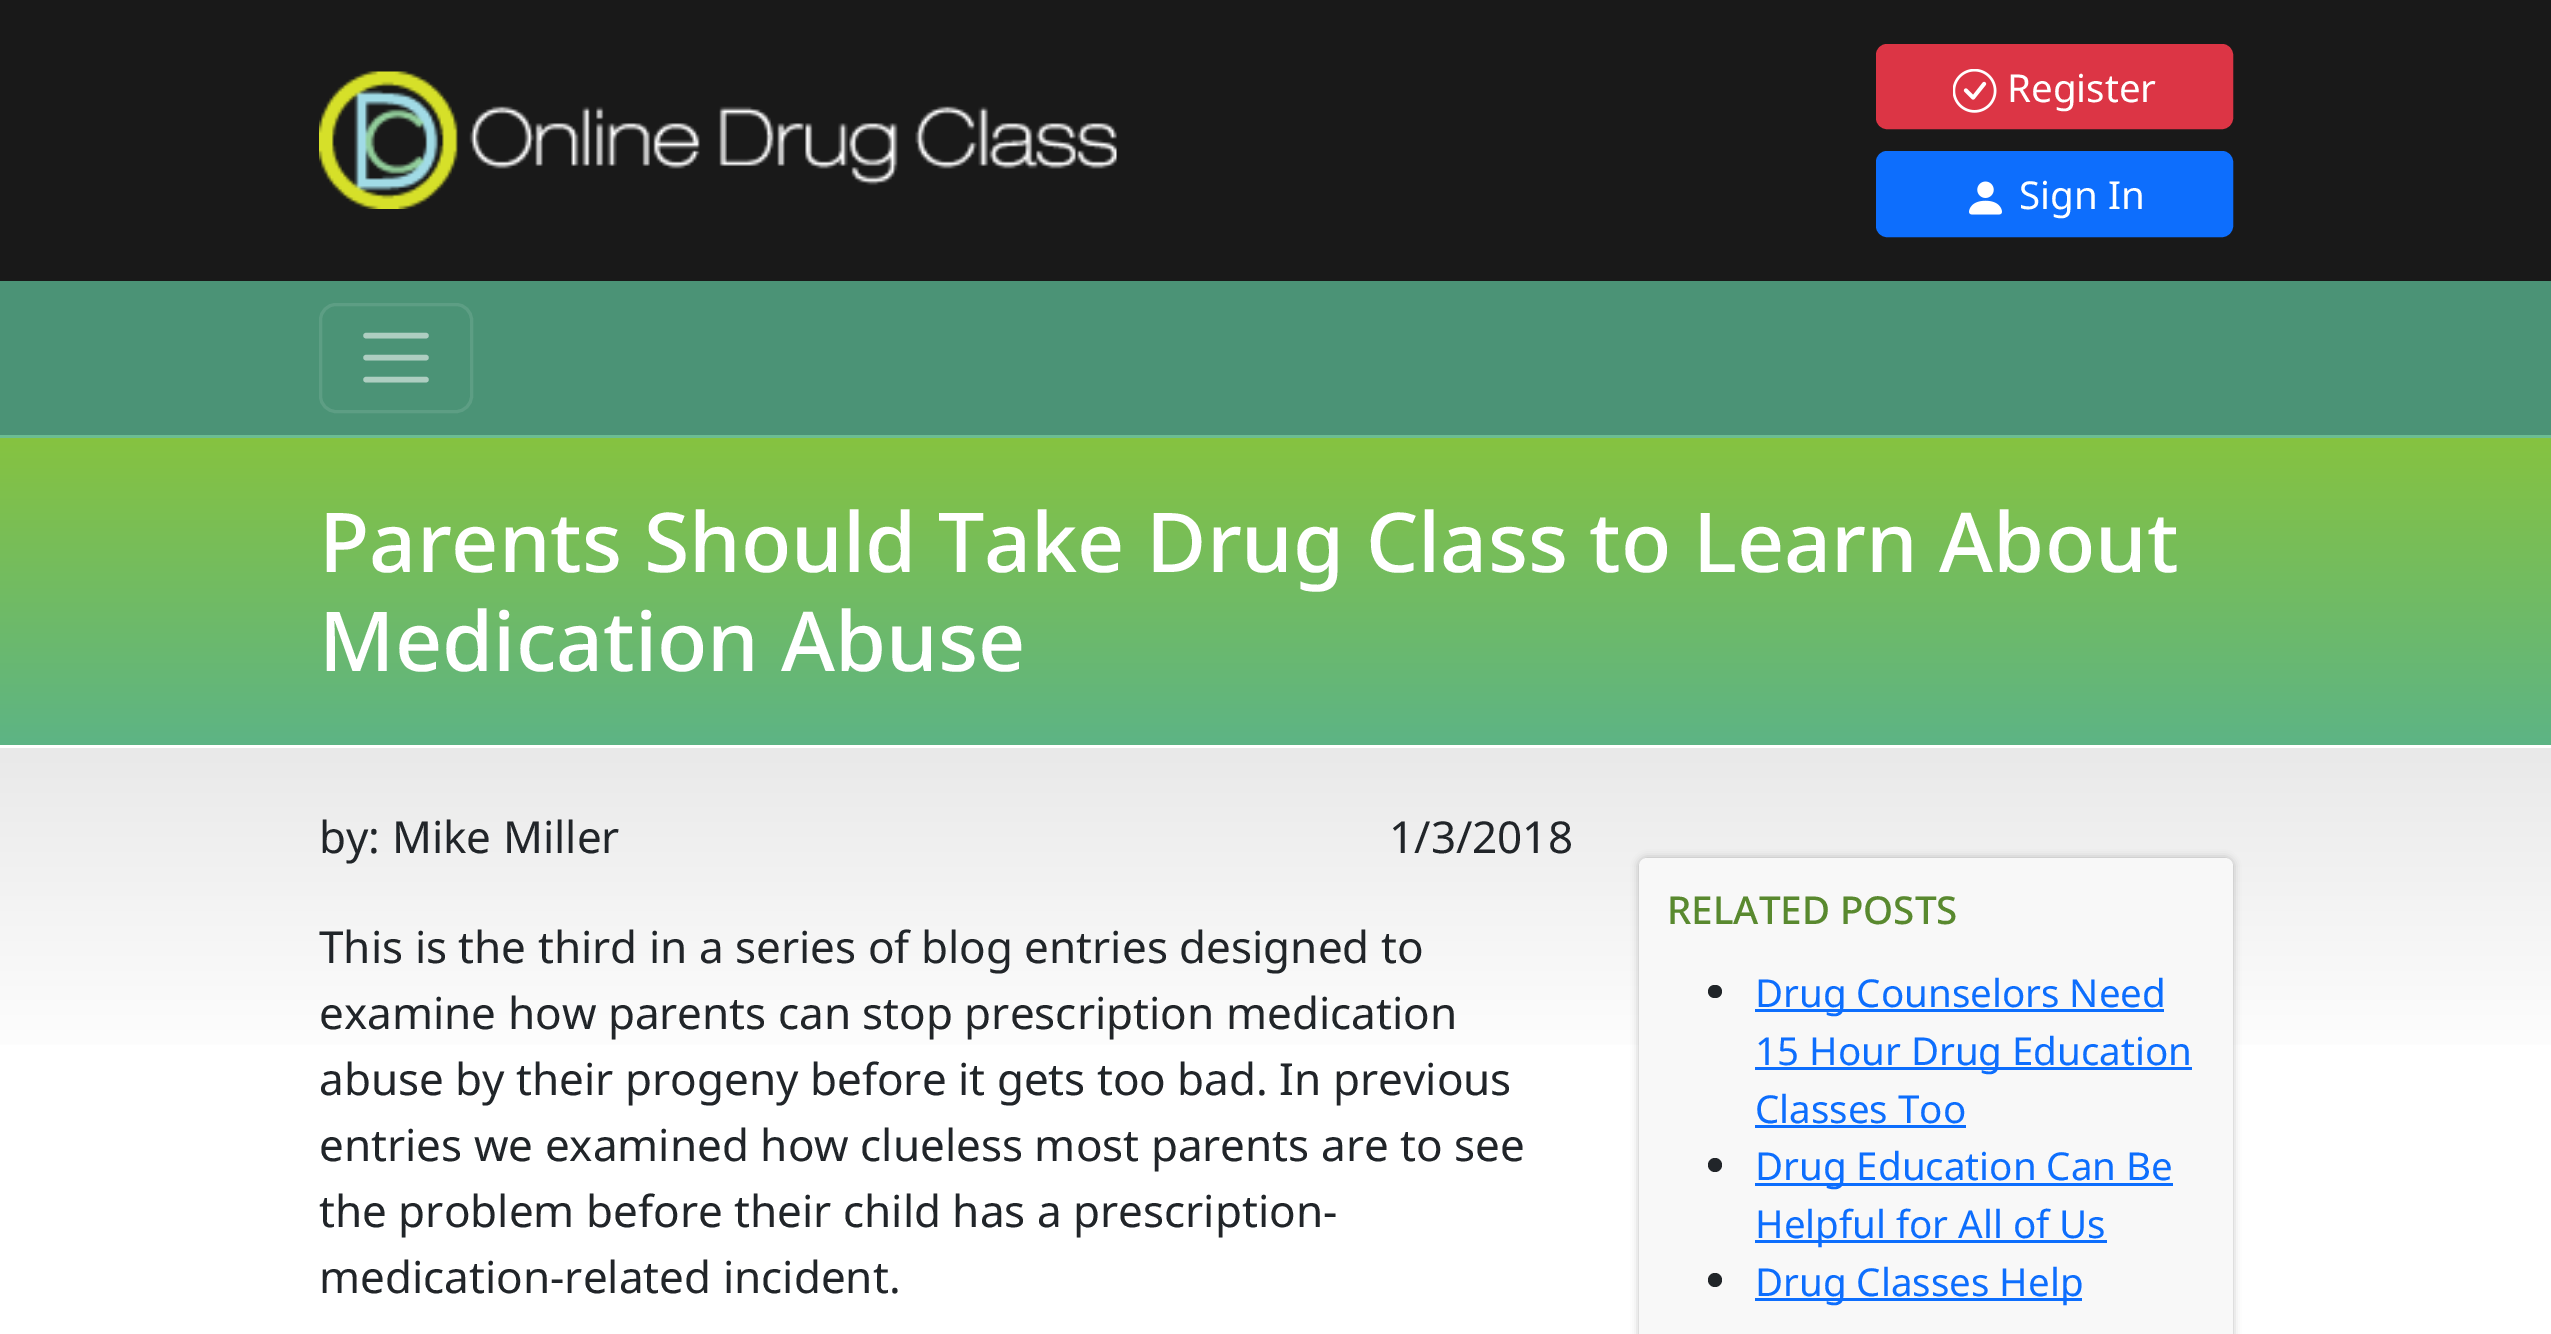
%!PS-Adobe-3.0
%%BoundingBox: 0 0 2551 1334
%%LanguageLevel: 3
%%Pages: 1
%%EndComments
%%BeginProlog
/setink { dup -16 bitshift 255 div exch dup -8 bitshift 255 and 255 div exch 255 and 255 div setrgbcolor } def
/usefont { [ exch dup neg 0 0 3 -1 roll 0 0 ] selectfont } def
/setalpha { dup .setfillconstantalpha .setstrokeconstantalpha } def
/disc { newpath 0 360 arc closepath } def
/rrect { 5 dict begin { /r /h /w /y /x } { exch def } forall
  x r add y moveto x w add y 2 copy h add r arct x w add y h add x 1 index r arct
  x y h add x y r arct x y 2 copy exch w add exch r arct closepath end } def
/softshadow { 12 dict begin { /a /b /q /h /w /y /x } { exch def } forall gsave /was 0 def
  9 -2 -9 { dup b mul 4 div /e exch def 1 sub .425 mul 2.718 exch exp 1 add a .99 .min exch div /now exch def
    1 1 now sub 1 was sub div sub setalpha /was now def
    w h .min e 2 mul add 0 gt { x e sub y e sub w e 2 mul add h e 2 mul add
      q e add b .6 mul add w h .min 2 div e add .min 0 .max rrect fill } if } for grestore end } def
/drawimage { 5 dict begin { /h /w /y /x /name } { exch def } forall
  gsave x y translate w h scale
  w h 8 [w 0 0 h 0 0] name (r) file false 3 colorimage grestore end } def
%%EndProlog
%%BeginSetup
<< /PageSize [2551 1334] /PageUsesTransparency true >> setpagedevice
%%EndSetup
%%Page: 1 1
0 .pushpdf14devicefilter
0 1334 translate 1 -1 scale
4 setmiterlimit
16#FFFFFF setink
0 0 2551 1334 rectfill
16#191919 setink
0 0 2551 281 rectfill
(img1.raw) 319 71 798 138 drawimage
16#DC3545 setink
1877.5 45.5 354 82 9.5 rrect gsave fill grestore
3 setlinewidth
stroke
(img2.raw) 1953 69 44 44 drawimage
/NotoSans-Regular 38.5 usefont
16#FFFFFF setink
2007 102 moveto (Register) show
16#0D6EFD setink
1877.5 152.5 354 83 9.5 rrect gsave fill grestore
stroke
(img3.raw) 1969 181 33 34 drawimage
16#FFFFFF setink
2019 209 moveto (Sign In) show
16#4B9376 setink
0 281 2551 154 rectfill
16#5D9E84 setink
320.5 304.5 151 107 15.5 rrect stroke
16#AECEC1 setink
5.5 setlinewidth
1 setlinecap
366 335.5 moveto 426 335.5 lineto 366 357.5 moveto 426 357.5 lineto 366 379.5 moveto 426 379.5 lineto stroke
gsave 0 438 moveto 2551 438 lineto 2551 745 lineto 0 745 lineto closepath clip newpath
<< /ShadingType 2 /ColorSpace /DeviceRGB /Coords [1276 745 1276 437] /Extend [true true] /Function << /FunctionType 2 /Domain [0 1] /C0 [0.365 0.706 0.522] /C1 [0.525 0.765 0.251] /N 1 >> >> shfill grestore
16#6CBD92 setink
0 435 2551 3 rectfill
/NotoSans-Medium 82.5 usefont
16#FFFFFF setink
319 572 moveto (Parents Should Take Drug Class to Learn About) show
319 671 moveto (Medication Abuse) show
gsave 0 748 moveto 2551 748 lineto 2551 1045 lineto 0 1045 lineto closepath clip newpath
<< /ShadingType 2 /ColorSpace /DeviceRGB /Coords [1276 748 1276 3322] /Extend [true true] /Function << /FunctionType 3 /Domain [0 1] /Functions [<< /FunctionType 2 /Domain [0 1] /C0 [0.914 0.914 0.914] /C1 [1 1 1] /N 1 >> << /FunctionType 2 /Domain [0 1] /C0 [1 1 1] /C1 [1 1 1] /N 1 >>] /Bounds [0.13] /Encode [0 1 0 1] >> >> shfill grestore
/NotoSans-Regular 44 usefont
16#212529 setink
[
    [(by: Mike Miller) 319 853]
    [(1/3/2018) 1389 853]
    [(This is the third in a series of blog entries designed to) 319 963]
    [(examine how parents can stop prescription medication) 319 1029]
    [(abuse by their progeny before it gets too bad. In previous) 319 1095]
    [(entries we examined how clueless most parents are to see) 319 1161]
    [(the problem before their child has a prescription-) 319 1227]
    [(medication-related incident.) 319 1293]
] { aload pop moveto show } forall
16#000000 setink
1639 858 594 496 8 4 0.25 softshadow
16#F8F8F8 setink
1639 858 594 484 8 rrect fill
/NotoSans-Medium 38.5 usefont
16#59892F setink
1667 924 moveto (RELATED POSTS) show
16#212529 setink
1708 985 14 13 6.5 rrect fill
16#0D6EFD setink
1755 1009 409 3 rectfill
/NotoSans-Regular 38.5 usefont
1755 1007 moveto (Drug Counselors Need) show
1755 1067 437 3 rectfill
1755 1065 moveto (15 Hour Drug Education) show
1755 1123 moveto (Classes Too) show
1755 1125 211 3 rectfill
16#212529 setink
1715 1165 7 disc fill
16#0D6EFD setink
1755 1183 418 3 rectfill
1755 1180 moveto (Drug Education Can Be) show
1755 1240 352 3 rectfill
1755 1238 moveto (Helpful for All of Us) show
16#212529 setink
1715 1280 7 disc fill
16#0D6EFD setink
1755 1298 327 3 rectfill
1755 1296 moveto (Drug Classes Help) show
.poppdf14devicefilter showpage
%%EOF
